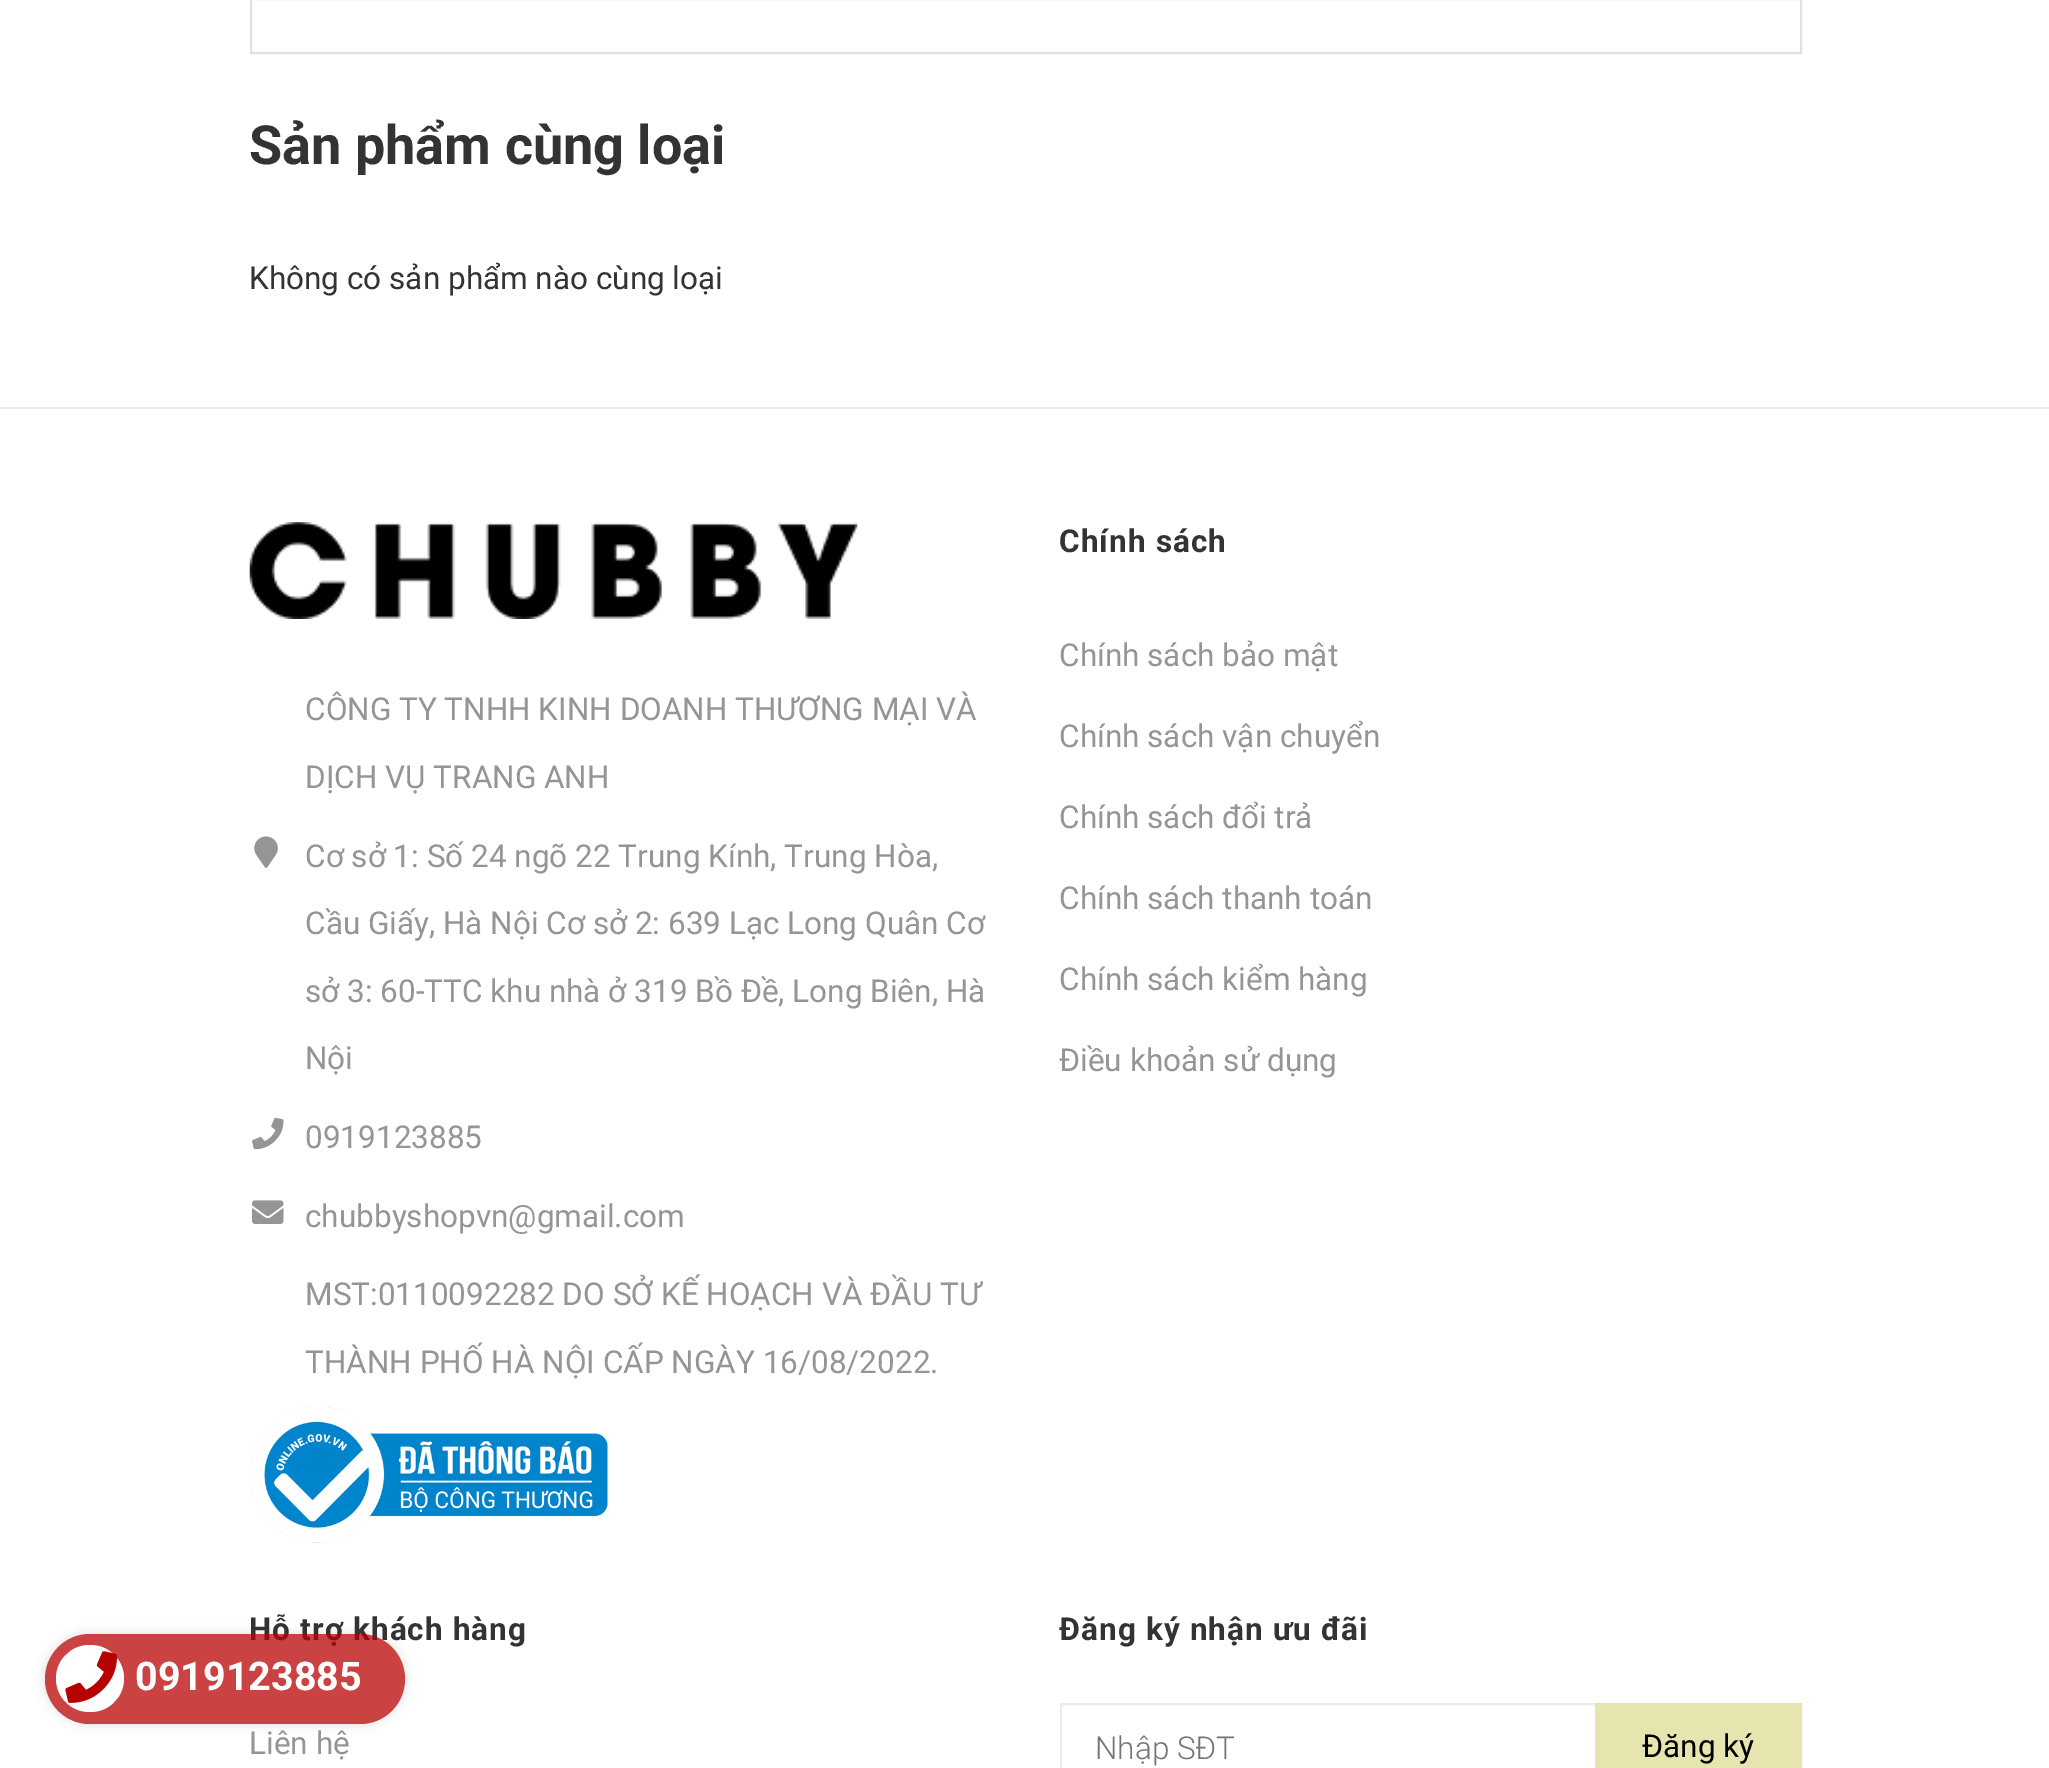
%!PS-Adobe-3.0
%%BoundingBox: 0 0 2049 1768
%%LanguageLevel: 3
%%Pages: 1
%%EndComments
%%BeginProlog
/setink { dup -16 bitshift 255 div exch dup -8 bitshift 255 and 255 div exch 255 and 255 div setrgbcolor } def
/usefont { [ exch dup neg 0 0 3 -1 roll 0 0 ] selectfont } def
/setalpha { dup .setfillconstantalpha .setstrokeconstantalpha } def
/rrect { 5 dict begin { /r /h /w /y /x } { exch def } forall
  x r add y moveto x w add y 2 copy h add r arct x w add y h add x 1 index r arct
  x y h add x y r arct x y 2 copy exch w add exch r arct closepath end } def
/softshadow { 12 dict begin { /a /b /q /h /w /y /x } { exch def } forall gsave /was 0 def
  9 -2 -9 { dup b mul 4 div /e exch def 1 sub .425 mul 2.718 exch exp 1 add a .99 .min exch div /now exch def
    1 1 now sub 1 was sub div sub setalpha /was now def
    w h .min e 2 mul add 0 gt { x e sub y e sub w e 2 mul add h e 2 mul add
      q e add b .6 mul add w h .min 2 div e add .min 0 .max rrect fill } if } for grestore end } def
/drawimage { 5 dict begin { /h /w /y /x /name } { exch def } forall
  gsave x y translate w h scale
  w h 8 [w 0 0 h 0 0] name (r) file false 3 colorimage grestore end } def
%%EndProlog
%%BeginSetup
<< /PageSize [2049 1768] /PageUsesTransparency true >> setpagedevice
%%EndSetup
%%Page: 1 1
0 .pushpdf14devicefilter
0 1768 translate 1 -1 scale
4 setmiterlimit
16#FFFFFF setink
0 0 2049 1768 rectfill
16#E1E1E1 setink
2 setlinewidth
251 -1 1550 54 rectstroke
/Roboto-Bold 54 usefont
16#333333 setink
249 164 moveto (Sản phẩm cùng loại) show
/Roboto-Regular 31.5 usefont
249 289 moveto (Không có sản phẩm nào cùng loại) show
gsave
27 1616 moveto 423 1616 lineto 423 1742 lineto 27 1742 lineto closepath 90 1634 moveto 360 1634 lineto 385 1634 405 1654 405 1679 curveto 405 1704 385 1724 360 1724 curveto 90 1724 lineto 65 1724 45 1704 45 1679 curveto 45 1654 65 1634 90 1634 curveto closepath eoclip newpath
16#DDDDDD setink
45 1634 360 90 45 5.5 1 softshadow
grestore
/Roboto-Bold 31.5 usefont
249 1640 moveto 1.1 0 (Hỗ trợ khách hàng) ashow
0.74 setalpha
16#B70100 setink
45 1634 360 90 45 rrect fill
1 setalpha
16#FFFFFF setink
56 1645 68 67 33.5 rrect fill
(img1.raw) 65 1651 53 52 drawimage
/Roboto-Bold 39.5 usefont
135 1690 moveto (0919123885) show
16#EBEBEB setink
0 407 2049 2 rectfill
(img2.raw) 249 522 609 97 drawimage
/Roboto-Regular 31.5 usefont
16#959595 setink
305 720 moveto (CÔNG TY TNHH KINH DOANH THƯƠNG MẠI VÀ) show
305 788 moveto (DỊCH VỤ TRANG ANH) show
(img3.raw) 254 836 24 32 drawimage
[
    [(Cơ sở 1: Số 24 ngõ 22 Trung Kính, Trung Hòa,) 305 867]
    [(Cầu Giấy, Hà Nội Cơ sở 2: 639 Lạc Long Quân Cơ) 305 934]
    [(sở 3: 60-TTC khu nhà ở 319 Bồ Đề, Long Biên, Hà) 305 1002]
    [(Nội) 305 1069]
] { aload pop moveto show } forall
(img4.raw) 252 1117 32 33 drawimage
305 1148 moveto (0919123885) show
(img5.raw) 252 1200 32 24 drawimage
[
    [(chubbyshopvn@gmail.com) 305 1227]
    [(MST:0110092282 DO SỞ KẾ HOẠCH VÀ ĐẦU TƯ) 305 1305]
    [(THÀNH PHỐ HÀ NỘI CẤP NGÀY 16/08/2022.) 305 1373]
] { aload pop moveto show } forall
(img6.raw) 249 1406 359 137 drawimage
/Roboto-Bold 31.5 usefont
16#333333 setink
1059 552 moveto 1.1 0 (Chính sách) ashow
/Roboto-Regular 31.5 usefont
16#959595 setink
[
    [(Chính sách bảo mật) 1059 666]
    [(Chính sách vận chuyển) 1059 747]
    [(Chính sách đổi trả) 1059 828]
    [(Chính sách thanh toán) 1059 909]
    [(Chính sách kiểm hàng) 1059 990]
    [(Điều khoản sử dụng) 1059 1071]
    [(Liên hệ) 249 1754]
] { aload pop moveto show } forall
/Roboto-Bold 31.5 usefont
16#333333 setink
1059 1640 moveto 1.1 0 (Đăng ký nhận ưu đãi) ashow
16#EBEBEB setink
1061 1704 740 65 rectstroke
/Roboto-Light 31.5 usefont
16#757575 setink
1095 1759 moveto (Nhập SĐT) show
16#E6E5AF setink
1595 1703 207 65 rectfill
/Roboto-Regular 31.5 usefont
16#000000 setink
1642 1757 moveto (Đăng ký) show
.poppdf14devicefilter showpage
%%EOF
